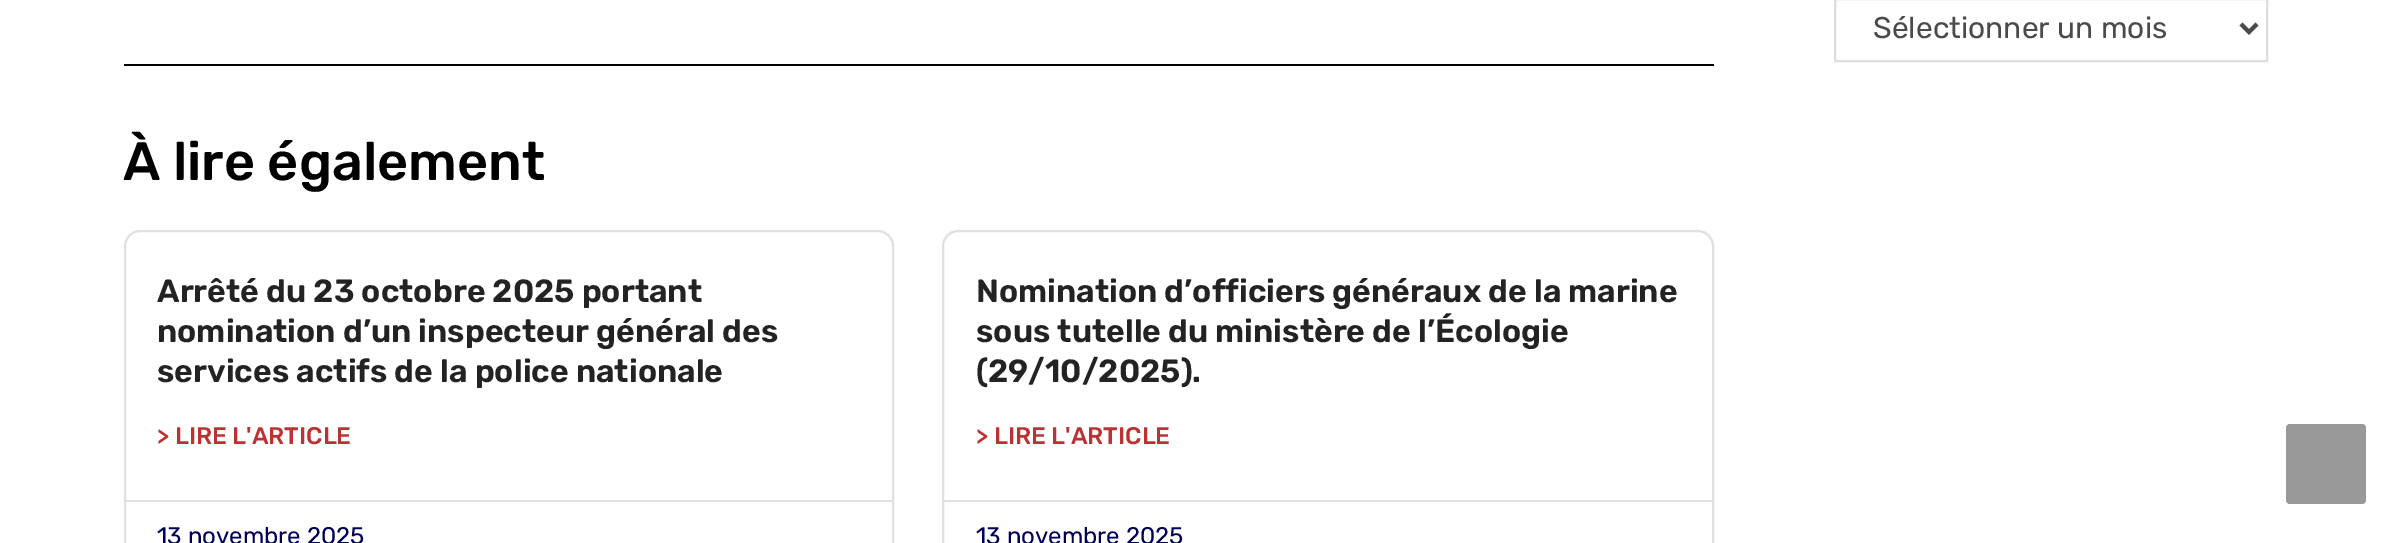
%!PS-Adobe-3.0
%%BoundingBox: 0 0 2405 543
%%LanguageLevel: 3
%%Pages: 1
%%EndComments
%%BeginProlog
/setink { dup -16 bitshift 255 div exch dup -8 bitshift 255 and 255 div exch 255 and 255 div setrgbcolor } def
/usefont { [ exch dup neg 0 0 3 -1 roll 0 0 ] selectfont } def
/rrect { 5 dict begin { /r /h /w /y /x } { exch def } forall
  x r add y moveto x w add y 2 copy h add r arct x w add y h add x 1 index r arct
  x y h add x y r arct x y 2 copy exch w add exch r arct closepath end } def
%%EndProlog
%%BeginSetup
<< /PageSize [2405 543] >> setpagedevice
%%EndSetup
%%Page: 1 1
0 543 translate 1 -1 scale
4 setmiterlimit
16#FFFFFF setink
0 0 2405 543 rectfill
16#DDDDDD setink
2 setlinewidth
1835 -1 432 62 rectstroke
16#4A4A4A setink
4 setlinewidth
2241 24 moveto 2249 32 lineto 2257 24 lineto stroke
/Rubik-Regular 30 usefont
1873 38 moveto (Sélectionner un mois) show
16#000000 setink
124 64 1590 2 rectfill
/Rubik-Medium 54 usefont
123 180 moveto (À lire également) show
16#E0E0E0 setink
2 setlinewidth
125 231 768 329 15 rrect stroke
/Rubik-SemiBold 32 usefont
16#232323 setink
[
    [(Arrêté du 23 octobre 2025 portant) 157 302]
    [(nomination d’un inspecteur général des) 157 342]
    [(services actifs de la police nationale) 157 382]
] { aload pop moveto show } forall
/Rubik-Medium 24 usefont
16#BC3232 setink
157 444 moveto (> LIRE L'ARTICLE) show
16#E0E0E0 setink
126 500 766 2 rectfill
/Rubik-Regular 24 usefont
16#000058 setink
157 544 moveto (13 novembre 2025) show
16#E0E0E0 setink
943 231 770 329 15 rrect stroke
/Rubik-SemiBold 32 usefont
16#232323 setink
[
    [(Nomination d’officiers généraux de la marine) 976 302]
    [(sous tutelle du ministère de l’Écologie) 976 342]
    [(\(29/10/2025\).) 976 382]
] { aload pop moveto show } forall
/Rubik-Medium 24 usefont
16#BC3232 setink
976 444 moveto (> LIRE L'ARTICLE) show
16#E0E0E0 setink
944 500 768 2 rectfill
/Rubik-Regular 24 usefont
16#000058 setink
976 544 moveto (13 novembre 2025) show
16#999999 setink
2286 424 80 80 4 rrect fill
showpage
%%EOF
